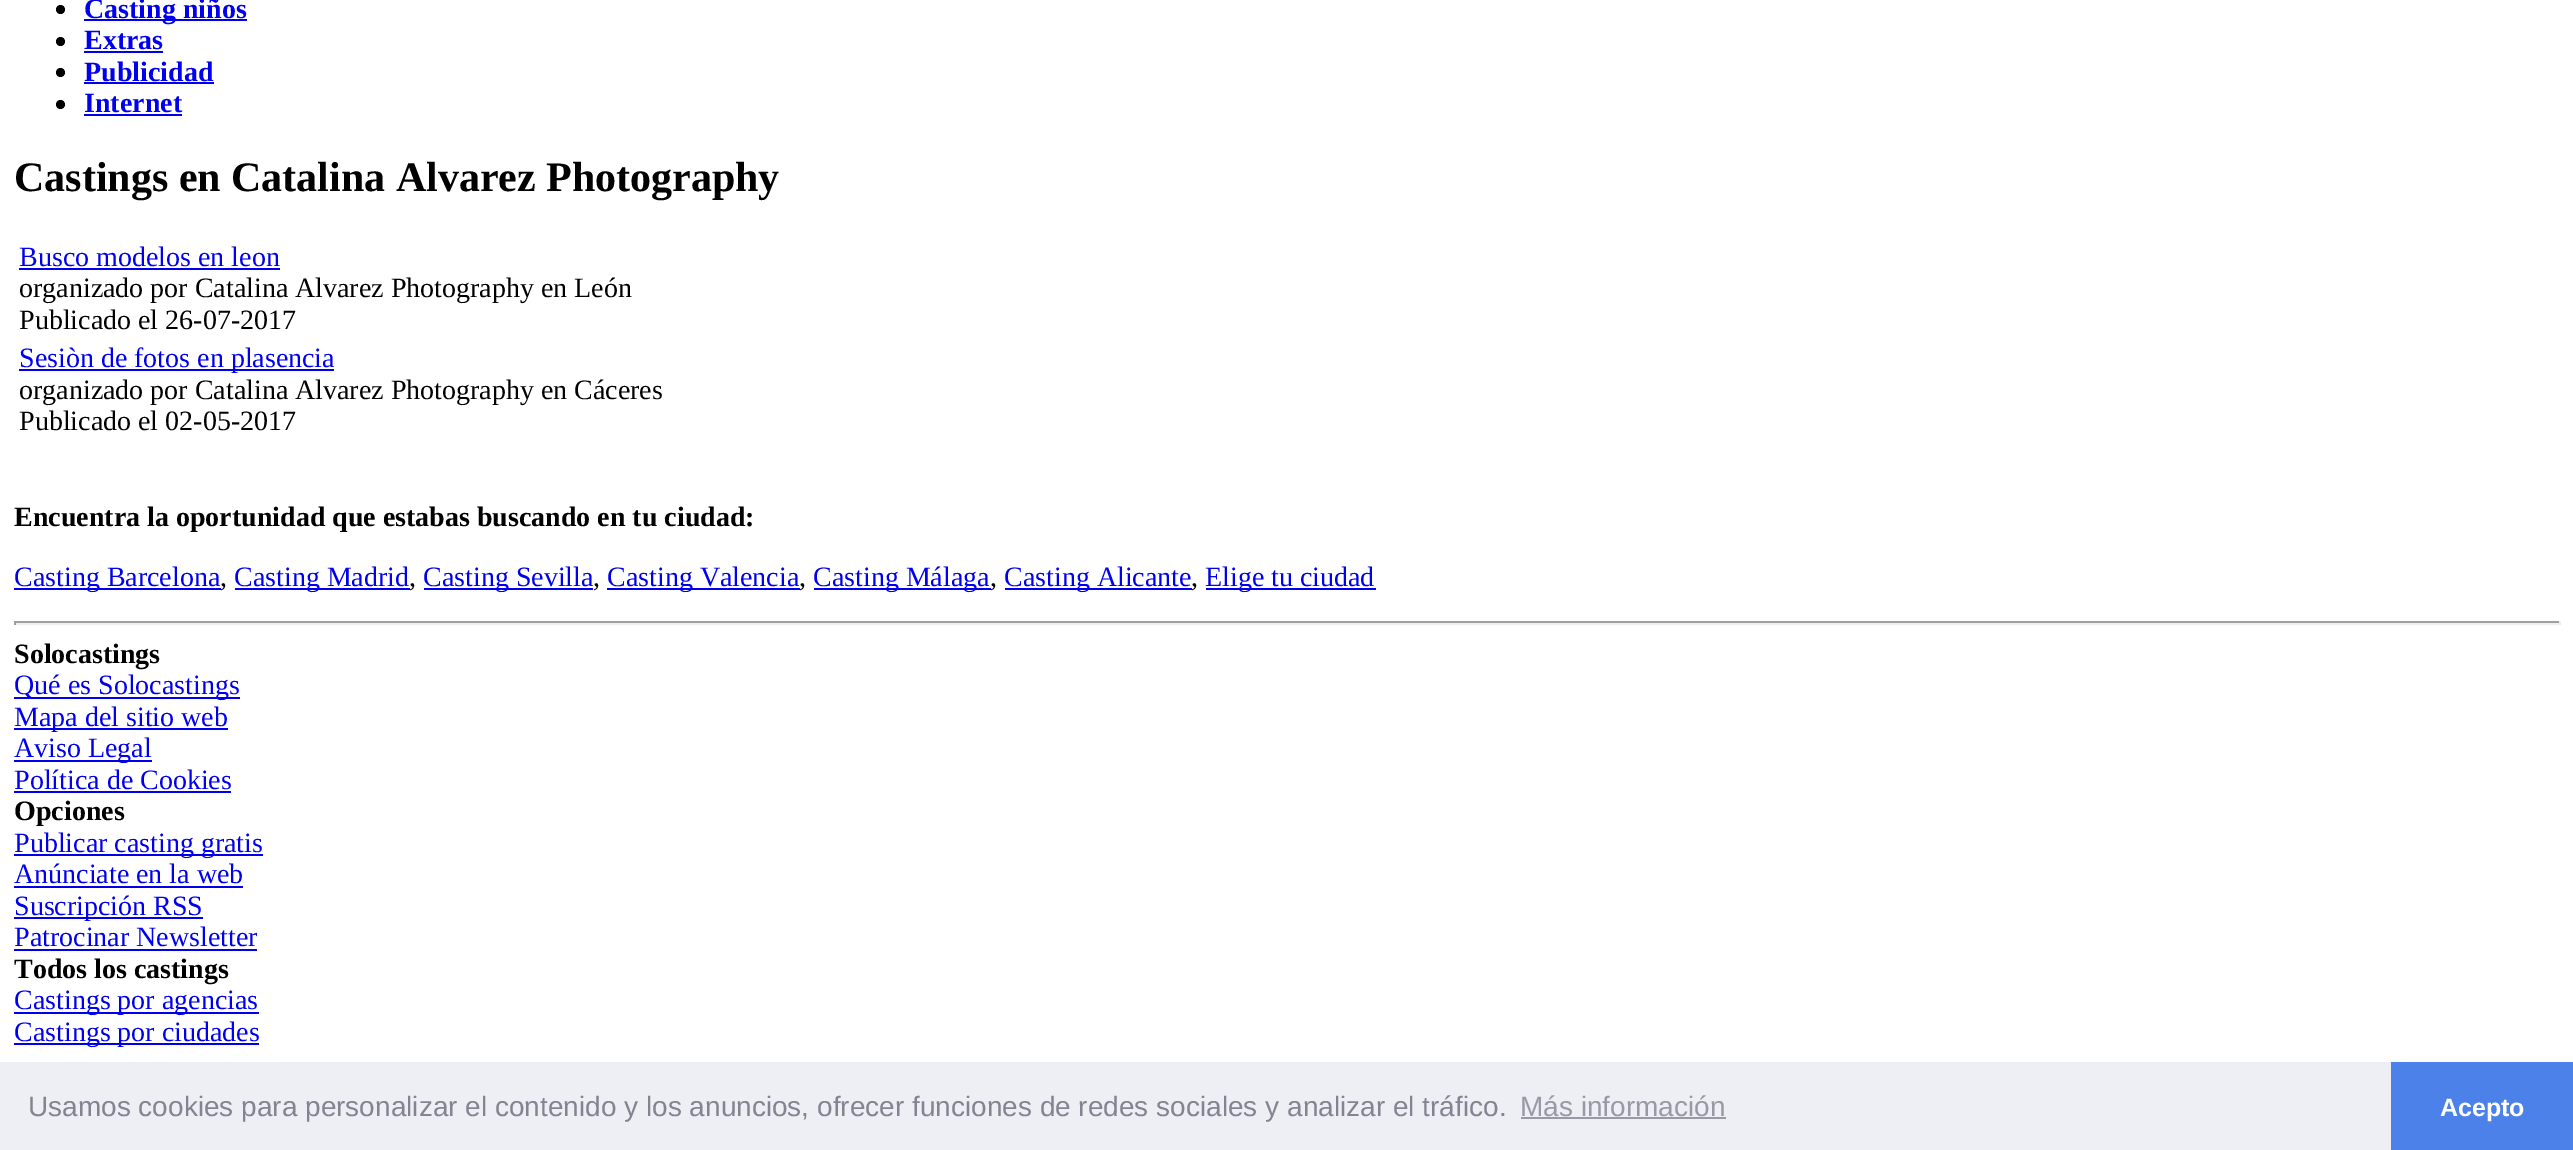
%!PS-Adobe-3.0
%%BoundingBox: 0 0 2573 1150
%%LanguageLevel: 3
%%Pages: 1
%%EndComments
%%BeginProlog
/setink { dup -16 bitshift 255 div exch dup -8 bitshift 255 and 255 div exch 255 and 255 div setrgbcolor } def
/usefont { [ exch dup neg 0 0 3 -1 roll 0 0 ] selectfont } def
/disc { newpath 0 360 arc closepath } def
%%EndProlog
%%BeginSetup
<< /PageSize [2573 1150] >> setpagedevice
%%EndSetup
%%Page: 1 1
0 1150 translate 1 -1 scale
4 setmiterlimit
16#FFFFFF setink
0 0 2573 1150 rectfill
16#000000 setink
60.5 9.5 4.5 disc fill
16#0000EE setink
84 19 163 2 rectfill
/LiberationSerif-Bold 28 usefont
84 18 moveto (Casting niños) show
16#000000 setink
60.5 41.5 4.5 disc fill
16#0000EE setink
84 49 moveto (Extras) show
84 51 79 2 rectfill
16#000000 setink
60.5 72.5 4.5 disc fill
16#0000EE setink
84 81 moveto (Publicidad) show
84 82 130 2 rectfill
16#000000 setink
60.5 104.5 4.5 disc fill
16#0000EE setink
84 112 moveto (Internet) show
84 114 98 2 rectfill
/LiberationSerif-Bold 42 usefont
16#000000 setink
14 191 moveto (Castings en Catalina Alvarez Photography) show
/LiberationSerif-Regular 28 usefont
16#0000EE setink
19 266 moveto (Busco modelos en leon) show
19 268 261 2 rectfill
16#000000 setink
19 297 moveto (organizado por Catalina Alvarez Photography en León) show
19 329 moveto (Publicado el 26-07-2017) show
16#0000EE setink
19 369 315 2 rectfill
19 367 moveto (Sesiòn de fotos en plasencia) show
16#000000 setink
19 399 moveto (organizado por Catalina Alvarez Photography en Cáceres) show
19 430 moveto (Publicado el 02-05-2017) show
/LiberationSerif-Bold 28 usefont
14 526 moveto (Encuentra la oportunidad que estabas buscando en tu ciudad:) show
16#0000EE setink
14 588 207 2 rectfill
/LiberationSerif-Regular 28 usefont
14 586 moveto (Casting Barcelona) show
16#000000 setink
220 586 moveto (,) show
16#0000EE setink
235 588 175 2 rectfill
234 586 moveto (Casting Madrid) show
16#000000 setink
409 586 moveto (,) show
16#0000EE setink
424 588 169 2 rectfill
423 586 moveto (Casting Sevilla) show
16#000000 setink
593 586 moveto (,) show
16#0000EE setink
607 588 193 2 rectfill
607 586 moveto (Casting Valencia) show
16#000000 setink
799 586 moveto (,) show
16#0000EE setink
814 588 177 2 rectfill
813 586 moveto (Casting Málaga) show
16#000000 setink
990 586 moveto (,) show
16#0000EE setink
1005 588 187 2 rectfill
1004 586 moveto (Casting Alicante) show
16#000000 setink
1191 586 moveto (,) show
16#0000EE setink
1206 588 170 2 rectfill
1205 586 moveto (Elige tu ciudad) show
[
    [14 621 2546 2 16#9F9F9F]
    [2559 621 2 4 16#EEEEEE]
    [14 623 2546 2 16#EEEEEE]
    [14 621 2 4 16#9F9F9F]
] { aload pop setink rectfill } forall
/LiberationSerif-Bold 28 usefont
16#000000 setink
14 663 moveto (Solocastings) show
16#0000EE setink
14 697 226 2 rectfill
/LiberationSerif-Regular 28 usefont
14 694 moveto (Qué es Solocastings) show
14 728 214 2 rectfill
14 726 moveto (Mapa del sitio web) show
14 760 138 2 rectfill
14 757 moveto (Aviso Legal) show
14 789 moveto (Política de Cookies) show
14 791 217 2 rectfill
/LiberationSerif-Bold 28 usefont
16#000000 setink
14 820 moveto (Opciones) show
16#0000EE setink
14 854 249 2 rectfill
/LiberationSerif-Regular 28 usefont
14 852 moveto (Publicar casting gratis) show
14 883 moveto (Anúnciate en la web) show
14 886 229 2 rectfill
14 917 189 2 rectfill
14 915 moveto (Suscripción RSS) show
14 946 moveto (Patrocinar Newsletter) show
14 949 243 2 rectfill
/LiberationSerif-Bold 28 usefont
16#000000 setink
14 978 moveto (Todos los castings) show
16#0000EE setink
14 1012 245 2 rectfill
/LiberationSerif-Regular 28 usefont
14 1009 moveto (Castings por agencias) show
14 1043 245 2 rectfill
14 1041 moveto (Castings por ciudades) show
16#EDEFF5 setink
0 1062 2391 88 rectfill
/LiberationSans-Regular 28 usefont
16#838391 setink
28 1116 moveto (Usamos cookies para personalizar el contenido y los anuncios, ofrecer funciones de redes sociales y analizar el tráfico.) show
16#9899A5 setink
1520 1116 moveto (Más información) show
1521 1117 205 2 rectfill
16#4B81E8 setink
2391 1062 182 88 rectfill
/LiberationSans-Bold 25 usefont
16#FFFFFF setink
2440 1116 moveto (Acepto) show
showpage
%%EOF
